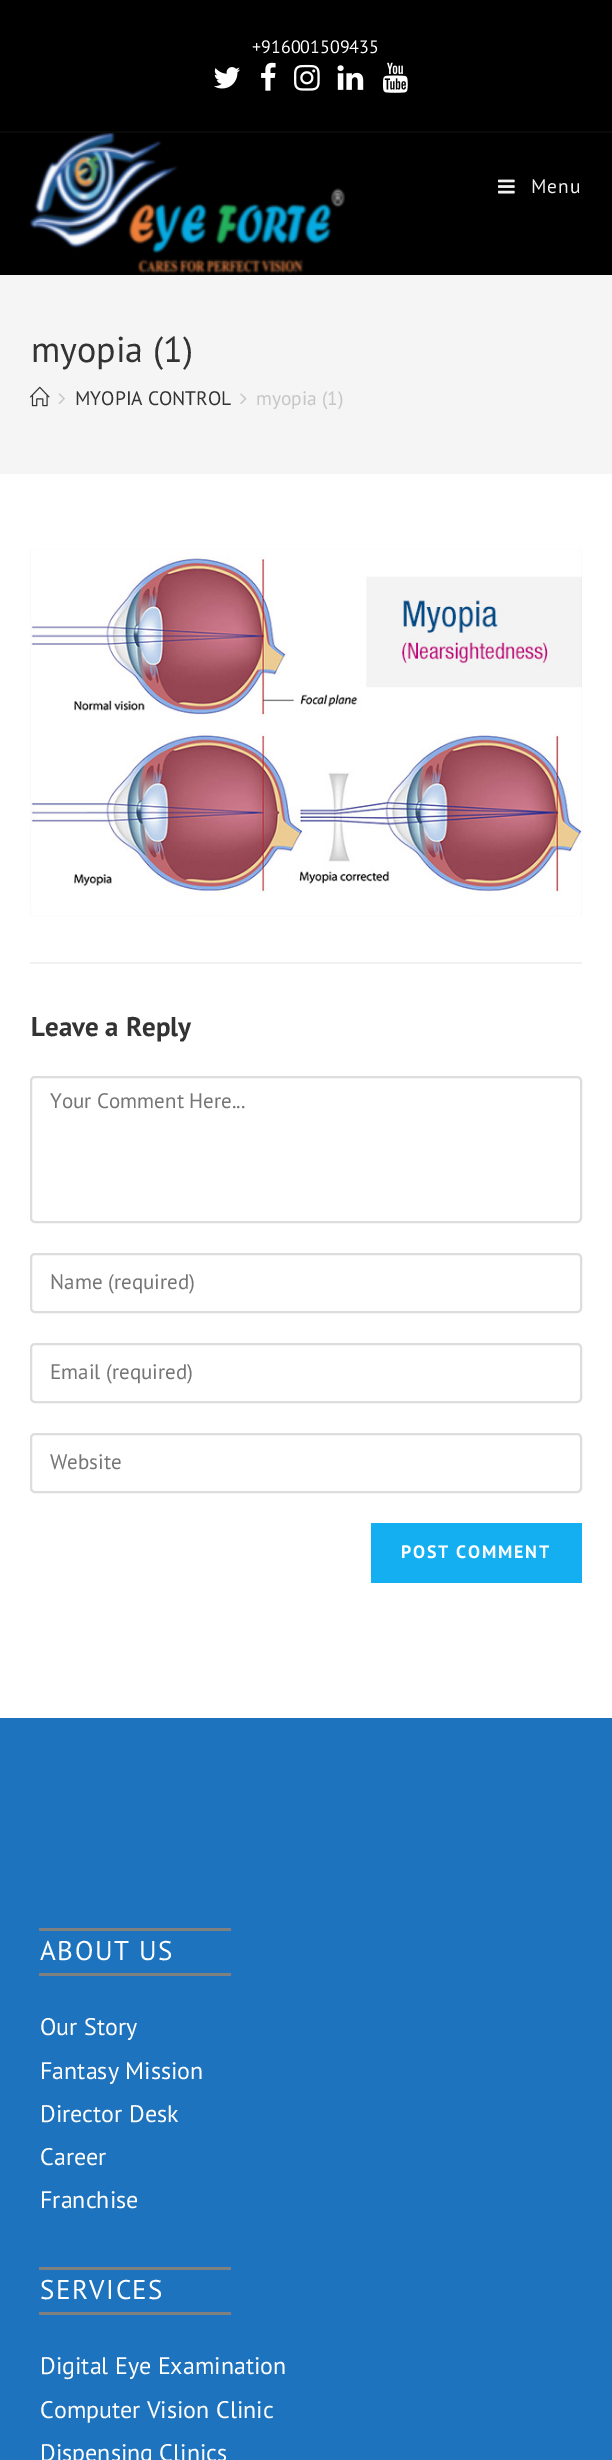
%!PS-Adobe-3.0
%%BoundingBox: 0 0 612 2460
%%LanguageLevel: 3
%%Pages: 1
%%EndComments
%%BeginProlog
/setink { dup -16 bitshift 255 div exch dup -8 bitshift 255 and 255 div exch 255 and 255 div setrgbcolor } def
/usefont { [ exch dup neg 0 0 3 -1 roll 0 0 ] selectfont } def
/rrect { 5 dict begin { /r /h /w /y /x } { exch def } forall
  x r add y moveto x w add y 2 copy h add r arct x w add y h add x 1 index r arct
  x y h add x y r arct x y 2 copy exch w add exch r arct closepath end } def
/drawimage { 5 dict begin { /h /w /y /x /name } { exch def } forall
  gsave x y translate w h scale
  w h 8 [w 0 0 h 0 0] name (r) file false 3 colorimage grestore end } def
%%EndProlog
%%BeginSetup
<< /PageSize [612 2460] >> setpagedevice
%%EndSetup
%%Page: 1 1
0 2460 translate 1 -1 scale
4 setmiterlimit
16#FFFFFF setink
0 0 612 2460 rectfill
16#000000 setink
0 0 612 131 rectfill
16#0A0A0A setink
0 131 612 2 rectfill
/PTSans-Regular 18 usefont
16#FFFFFF setink
252 53 moveto (+916001509435) show
(img1.raw) 214 67 26 22 drawimage
(img2.raw) 261 62 15 29 drawimage
(img3.raw) 294 64 26 27 drawimage
(img4.raw) 337 65 27 25 drawimage
(img5.raw) 382 62 26 31 drawimage
16#000000 setink
0 133 612 142 rectfill
(img6.raw) 30 133 315 141 drawimage
(img7.raw) 498 179 17 15 drawimage
/PTSans-Regular 19.5 usefont
16#F2F2F2 setink
531 193 moveto 1 0 (Menu) ashow
16#F5F5F5 setink
0 275 612 199 rectfill
/PTSans-Regular 36 usefont
16#333333 setink
31 362 moveto (myopia \(1\)) show
(img8.raw) 30 386 20 21 drawimage
(img9.raw) 58 393 7 11 drawimage
/PTSans-Regular 19.5 usefont
75 405 moveto (MYOPIA CONTROL) show
(img10.raw) 240 393 7 11 drawimage
16#C6C6C6 setink
256 405 moveto (myopia \(1\)) show
(img11.raw) 30 549 552 368 drawimage
16#F1F1F1 setink
30 962 552 2 rectfill
/PTSans-Bold 27 usefont
16#333333 setink
31 1036 moveto (Leave a Reply) show
16#DDDDDD setink
2 setlinewidth
31 1077 550 145 4 rrect stroke
/PTSans-Regular 21 usefont
16#757575 setink
50 1108 moveto (Your Comment Here...) show
16#DDDDDD setink
31 1254 550 58 4 rrect stroke
16#757575 setink
50 1289 moveto (Name \(required\)) show
16#DDDDDD setink
31 1344 550 58 4 rrect stroke
16#757575 setink
50 1379 moveto (Email \(required\)) show
16#DDDDDD setink
31 1434 550 58 4 rrect stroke
16#757575 setink
50 1469 moveto (Website) show
16#13AFF0 setink
371 1523 211 60 rectfill
/PTSans-Bold 18 usefont
16#FFFFFF setink
401 1558 moveto 1.75 0 (POST COMMENT) ashow
[
    [0 1718 612 742 16#1E73BE]
    [39 1928 192 3 16#808080]
    [39 1973 192 3 16#808080]
] { aload pop setink rectfill } forall
/PTSans-Regular 27 usefont
16#FFFFFF setink
40 1960 moveto 1.5 0 (ABOUT US) ashow
/PTSans-Regular 24 usefont
[
    [(Our Story) 40 2035]
    [(Fantasy Mission) 40 2079]
    [(Director Desk) 40 2122]
    [(Career) 40 2165]
    [(Franchise) 40 2208]
] { aload pop moveto show } forall
16#808080 setink
39 2267 192 3 rectfill
39 2312 192 3 rectfill
/PTSans-Regular 27 usefont
16#FFFFFF setink
40 2299 moveto 1.5 0 (SERVICES) ashow
/PTSans-Regular 24 usefont
[
    [(Digital Eye Examination) 40 2374]
    [(Computer Vision Clinic) 40 2418]
    [(Dispensing Clinics) 40 2461]
] { aload pop moveto show } forall
showpage
%%EOF
